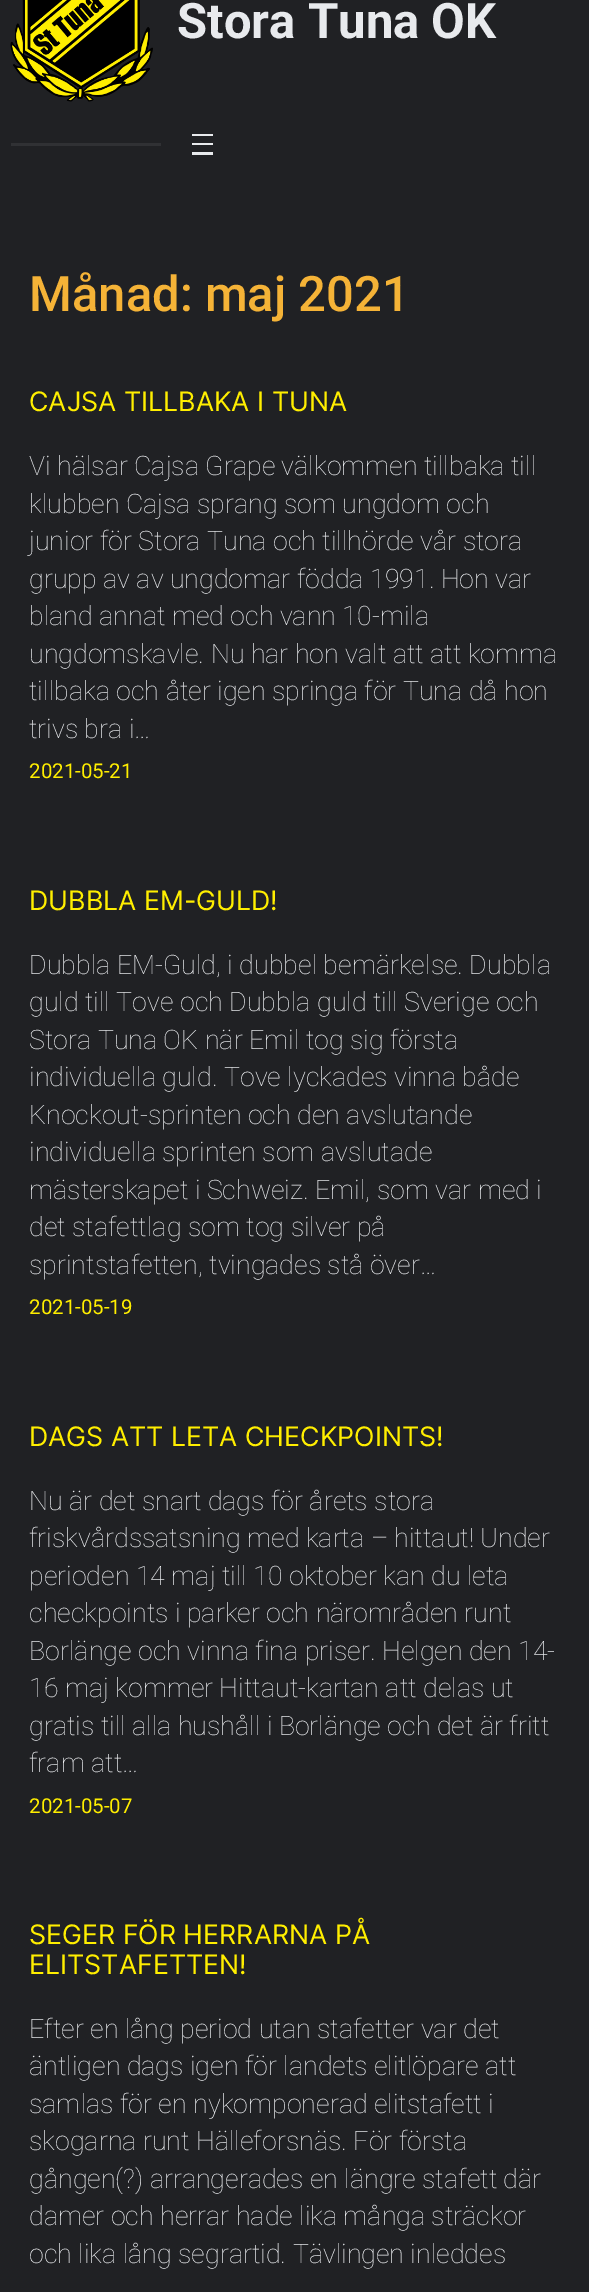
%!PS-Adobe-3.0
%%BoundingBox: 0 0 589 2292
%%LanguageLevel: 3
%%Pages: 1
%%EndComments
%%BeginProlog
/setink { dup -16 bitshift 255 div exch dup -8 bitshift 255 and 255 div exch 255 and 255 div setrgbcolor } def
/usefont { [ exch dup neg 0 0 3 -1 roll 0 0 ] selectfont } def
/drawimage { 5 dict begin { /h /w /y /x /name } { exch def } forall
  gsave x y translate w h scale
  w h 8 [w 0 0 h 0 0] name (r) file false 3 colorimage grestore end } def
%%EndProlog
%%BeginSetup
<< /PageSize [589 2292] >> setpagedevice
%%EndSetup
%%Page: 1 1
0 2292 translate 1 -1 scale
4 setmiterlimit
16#202124 setink
0 0 589 2292 rectfill
(img1.raw) 10 0 143 102 drawimage
/Roboto-Bold 49 usefont
16#E8EAED setink
177 38 moveto (Stora Tuna OK) show
[
    [11 143 150 3 16#303134]
    [192 134 21 2 16#E8EAED]
    [192 143 21 2 16#E8EAED]
    [192 152 21 3 16#E8EAED]
] { aload pop setink rectfill } forall
/Roboto-Medium 49 usefont
16#F5B337 setink
29 311 moveto (Månad: maj 2021) show
/Inter-Regular 26.8 usefont
16#FFEE00 setink
29 411 moveto (CAJSA TILLBAKA I TUNA) show
/Roboto-Thin 26.8 usefont
16#E8EAED setink
[
    [(Vi hälsar Cajsa Grape välkommen tillbaka till) 29 475]
    [(klubben Cajsa sprang som ungdom och) 29 513]
    [(junior för Stora Tuna och tillhörde vår stora) 29 550]
    [(grupp av av ungdomar födda 1991. Hon var) 29 588]
    [(bland annat med och vann 10-mila) 29 625]
    [(ungdomskavle. Nu har hon valt att att komma) 29 663]
    [(tillbaka och åter igen springa för Tuna då hon) 29 700]
    [(trivs bra i…) 29 738]
] { aload pop moveto show } forall
/Roboto-Regular 20.5 usefont
16#FFEE00 setink
29 778 moveto (2021-05-21) show
/Inter-Regular 26.8 usefont
29 910 moveto (DUBBLA EM-GULD!) show
/Roboto-Thin 26.8 usefont
16#E8EAED setink
[
    [(Dubbla EM-Guld, i dubbel bemärkelse. Dubbla) 29 974]
    [(guld till Tove och Dubbla guld till Sverige och) 29 1011]
    [(Stora Tuna OK när Emil tog sig första) 29 1049]
    [(individuella guld. Tove lyckades vinna både) 29 1086]
    [(Knockout-sprinten och den avslutande) 29 1124]
    [(individuella sprinten som avslutade) 29 1161]
    [(mästerskapet i Schweiz. Emil, som var med i) 29 1199]
    [(det stafettlag som tog silver på) 29 1236]
    [(sprintstafetten, tvingades stå över…) 29 1274]
] { aload pop moveto show } forall
/Roboto-Regular 20.5 usefont
16#FFEE00 setink
29 1314 moveto (2021-05-19) show
/Inter-Regular 26.8 usefont
29 1446 moveto (DAGS ATT LETA CHECKPOINTS!) show
/Roboto-Thin 26.8 usefont
16#E8EAED setink
[
    [(Nu är det snart dags för årets stora) 29 1510]
    [(friskvårdssatsning med karta – hittaut! Under) 29 1547]
    [(perioden 14 maj till 10 oktober kan du leta) 29 1585]
    [(checkpoints i parker och närområden runt) 29 1622]
    [(Borlänge och vinna fina priser. Helgen den 14-) 29 1660]
    [(16 maj kommer Hittaut-kartan att delas ut) 29 1697]
    [(gratis till alla hushåll i Borlänge och det är fritt) 29 1735]
    [(fram att…) 29 1772]
] { aload pop moveto show } forall
/Roboto-Regular 20.5 usefont
16#FFEE00 setink
29 1813 moveto (2021-05-07) show
/Inter-Regular 26.8 usefont
29 1944 moveto (SEGER FÖR HERRARNA PÅ) show
29 1974 moveto (ELITSTAFETTEN!) show
/Roboto-Thin 26.8 usefont
16#E8EAED setink
[
    [(Efter en lång period utan stafetter var det) 29 2038]
    [(äntligen dags igen för landets elitlöpare att) 29 2075]
    [(samlas för en nykomponerad elitstafett i) 29 2113]
    [(skogarna runt Hälleforsnäs. För första) 29 2150]
    [(gången\(?\) arrangerades en längre stafett där) 29 2188]
    [(damer och herrar hade lika många sträckor) 29 2225]
    [(och lika lång segrartid. Tävlingen inleddes) 29 2263]
] { aload pop moveto show } forall
showpage
%%EOF
